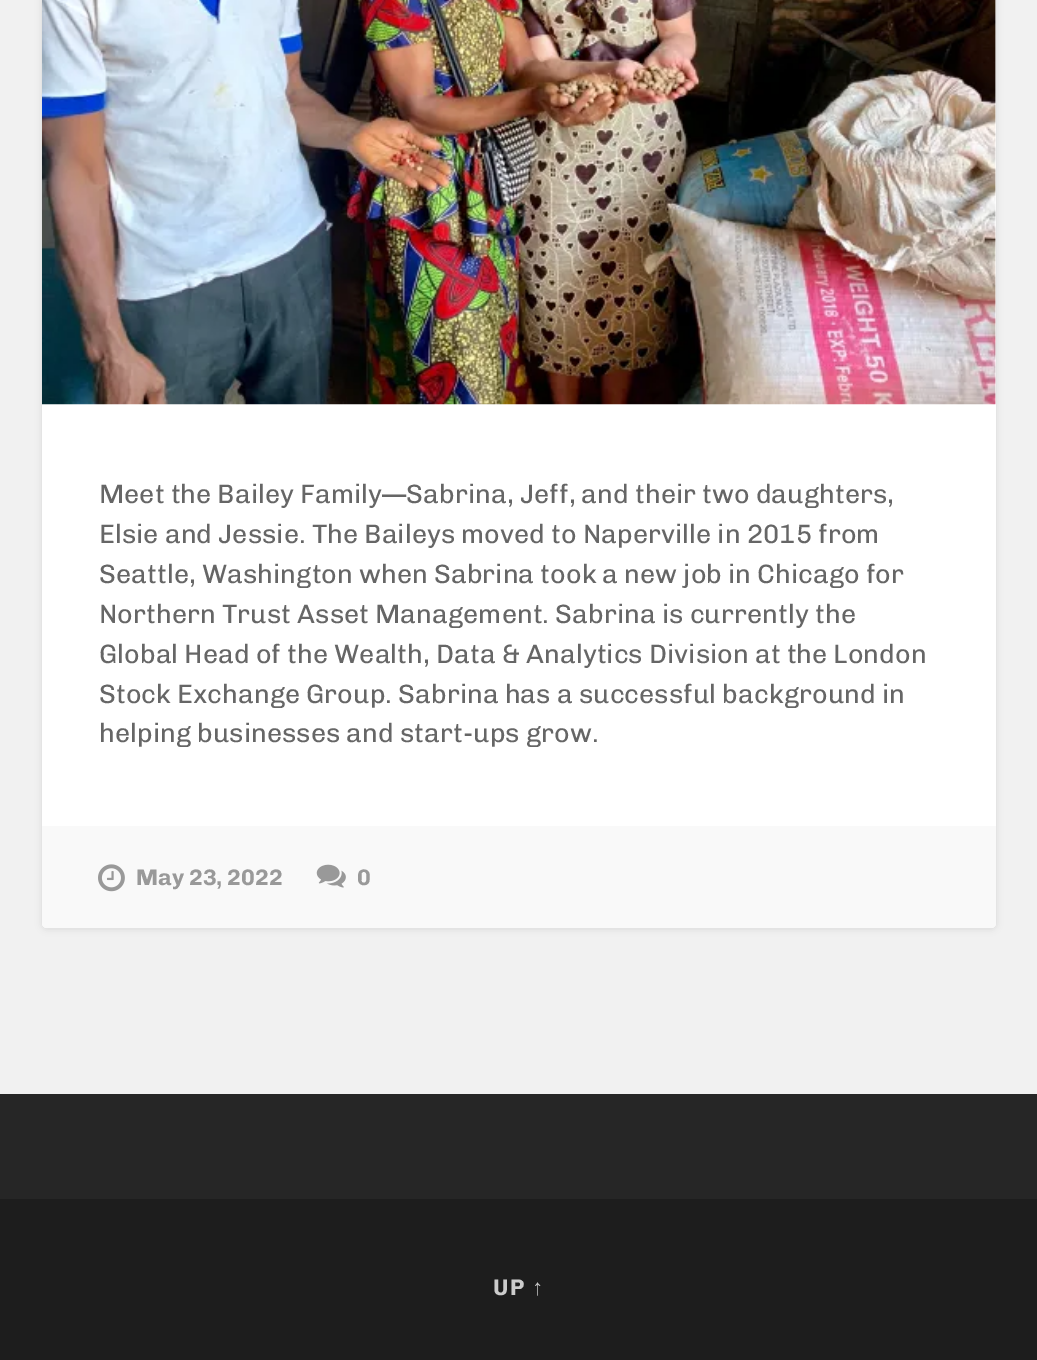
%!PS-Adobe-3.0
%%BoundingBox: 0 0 1037 1360
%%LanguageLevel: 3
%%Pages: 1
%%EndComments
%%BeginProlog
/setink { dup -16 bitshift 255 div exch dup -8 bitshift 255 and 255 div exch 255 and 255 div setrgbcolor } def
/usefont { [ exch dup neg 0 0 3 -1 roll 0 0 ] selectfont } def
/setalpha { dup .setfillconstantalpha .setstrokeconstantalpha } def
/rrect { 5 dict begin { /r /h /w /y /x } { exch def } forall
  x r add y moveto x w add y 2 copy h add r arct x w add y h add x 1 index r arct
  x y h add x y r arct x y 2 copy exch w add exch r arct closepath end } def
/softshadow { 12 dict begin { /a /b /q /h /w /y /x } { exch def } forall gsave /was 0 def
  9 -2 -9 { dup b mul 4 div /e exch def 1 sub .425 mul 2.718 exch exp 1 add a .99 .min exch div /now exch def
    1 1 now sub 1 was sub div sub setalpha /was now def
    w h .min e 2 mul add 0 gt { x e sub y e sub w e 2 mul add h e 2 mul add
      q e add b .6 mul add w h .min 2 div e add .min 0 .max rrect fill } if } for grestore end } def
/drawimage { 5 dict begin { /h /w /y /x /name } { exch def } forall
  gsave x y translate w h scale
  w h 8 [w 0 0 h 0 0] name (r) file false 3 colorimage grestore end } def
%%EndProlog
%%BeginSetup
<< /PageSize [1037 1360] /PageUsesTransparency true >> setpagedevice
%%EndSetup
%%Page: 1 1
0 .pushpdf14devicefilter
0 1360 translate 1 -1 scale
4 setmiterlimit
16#F1F1F1 setink
0 0 1037 1360 rectfill
16#000000 setink
42 -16 954 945 5 3.5 0.1 softshadow
16#FFFFFF setink
42 -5 954 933 5 rrect fill
(img1.raw) 42 0 954 405 drawimage
/Chivo-Regular 26.6 usefont
16#666666 setink
[
    [(Meet the Bailey Family—Sabrina, Jeff, and their two daughters,) 99 503]
    [(Elsie and Jessie. The Baileys moved to Naperville in 2015 from) 99 543]
    [(Seattle, Washington when Sabrina took a new job in Chicago for) 99 583]
    [(Northern Trust Asset Management. Sabrina is currently the) 99 623]
    [(Global Head of the Wealth, Data & Analytics Division at the London) 99 663]
    [(Stock Exchange Group. Sabrina has a successful background in) 99 703]
    [(helping businesses and start-ups grow.) 99 742]
] { aload pop moveto show } forall
16#F9F9F9 setink
42 826 moveto 996 826 lineto 996 923 lineto 996 926 994 928 991 928 curveto 47 928 lineto 44 928 42 926 42 923 curveto closepath fill
(img2.raw) 98 864 27 28 drawimage
/Chivo-Bold 22.5 usefont
16#999999 setink
136 885 moveto (May 23, 2022) show
(img3.raw) 316 864 30 24 drawimage
357 885 moveto (0) show
16#262626 setink
0 1094 1037 105 rectfill
16#1D1D1D setink
0 1199 1037 161 rectfill
16#CCCCCC setink
493 1295 moveto 2 0 (UP) ashow
/LiberationSans-Bold 22.5 usefont
532 1295 moveto 2 0 (↑) ashow
.poppdf14devicefilter showpage
%%EOF
